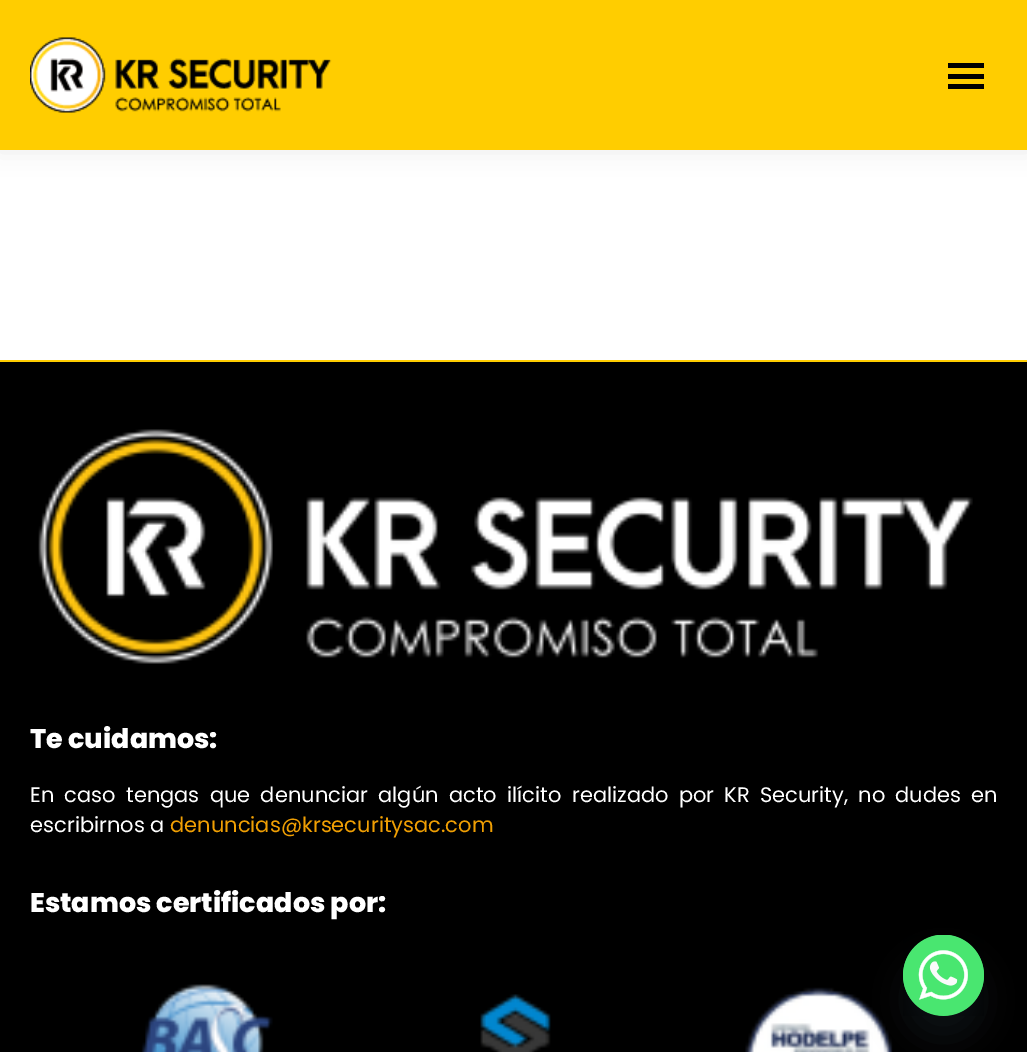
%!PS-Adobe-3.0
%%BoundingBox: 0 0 1027 1052
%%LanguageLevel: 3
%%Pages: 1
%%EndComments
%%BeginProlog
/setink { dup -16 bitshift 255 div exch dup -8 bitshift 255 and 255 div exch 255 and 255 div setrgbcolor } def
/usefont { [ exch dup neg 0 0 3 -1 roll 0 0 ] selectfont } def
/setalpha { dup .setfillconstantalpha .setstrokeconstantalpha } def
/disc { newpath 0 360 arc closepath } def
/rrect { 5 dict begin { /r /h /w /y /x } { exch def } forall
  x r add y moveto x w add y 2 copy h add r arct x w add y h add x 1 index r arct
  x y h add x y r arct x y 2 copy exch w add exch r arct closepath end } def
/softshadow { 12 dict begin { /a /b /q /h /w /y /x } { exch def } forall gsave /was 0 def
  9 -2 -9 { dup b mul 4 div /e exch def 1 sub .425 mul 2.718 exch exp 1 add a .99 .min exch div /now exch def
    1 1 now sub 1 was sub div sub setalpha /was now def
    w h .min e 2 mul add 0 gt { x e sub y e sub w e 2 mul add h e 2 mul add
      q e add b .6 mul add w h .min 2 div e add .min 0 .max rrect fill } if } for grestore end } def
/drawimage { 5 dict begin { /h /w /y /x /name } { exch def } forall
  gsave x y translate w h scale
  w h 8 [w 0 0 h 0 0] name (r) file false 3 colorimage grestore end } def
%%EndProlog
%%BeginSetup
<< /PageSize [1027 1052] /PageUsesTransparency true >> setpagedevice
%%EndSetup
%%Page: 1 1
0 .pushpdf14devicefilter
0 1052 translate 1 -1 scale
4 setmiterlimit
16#FFFFFF setink
0 0 1027 1052 rectfill
16#000000 setink
-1 -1 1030 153 0 11 0.07 softshadow
16#FFCD00 setink
0 0 1027 150 rectfill
(img1.raw) 30 37 302 76 drawimage
[
    [948 63 36 5 16#000000]
    [948 74 36 5 16#000000]
    [948 84 36 5 16#000000]
    [0 362 1027 690 16#000000]
    [0 360 1027 2 16#FFCD00]
] { aload pop setink rectfill } forall
(img2.raw) 38 429 935 235 drawimage
/Poppins-ExtraBold 27 usefont
16#FFFFFF setink
30 748 moveto (Te cuidamos:) show
/Poppins-Regular 21 usefont
30 802 moveto 4.6 0 32 (En caso tengas que denunciar algún acto ilícito realizado por KR Security, no dudes en) widthshow
30 832 moveto (escribirnos a) show
16#F09F03 setink
170 832 moveto (denuncias@krsecuritysac.com) show
/Poppins-ExtraBold 27 usefont
16#FFFFFF setink
30 912 moveto (Estamos certificados por:) show
(img3.raw) 141 984 752 68 drawimage
16#49687E setink
903 959 81 81 40.5 18 0.16 softshadow
16#49E670 setink
943.5 975.5 40.5 disc fill
(img4.raw) 903 935 81 81 drawimage
.poppdf14devicefilter showpage
%%EOF
